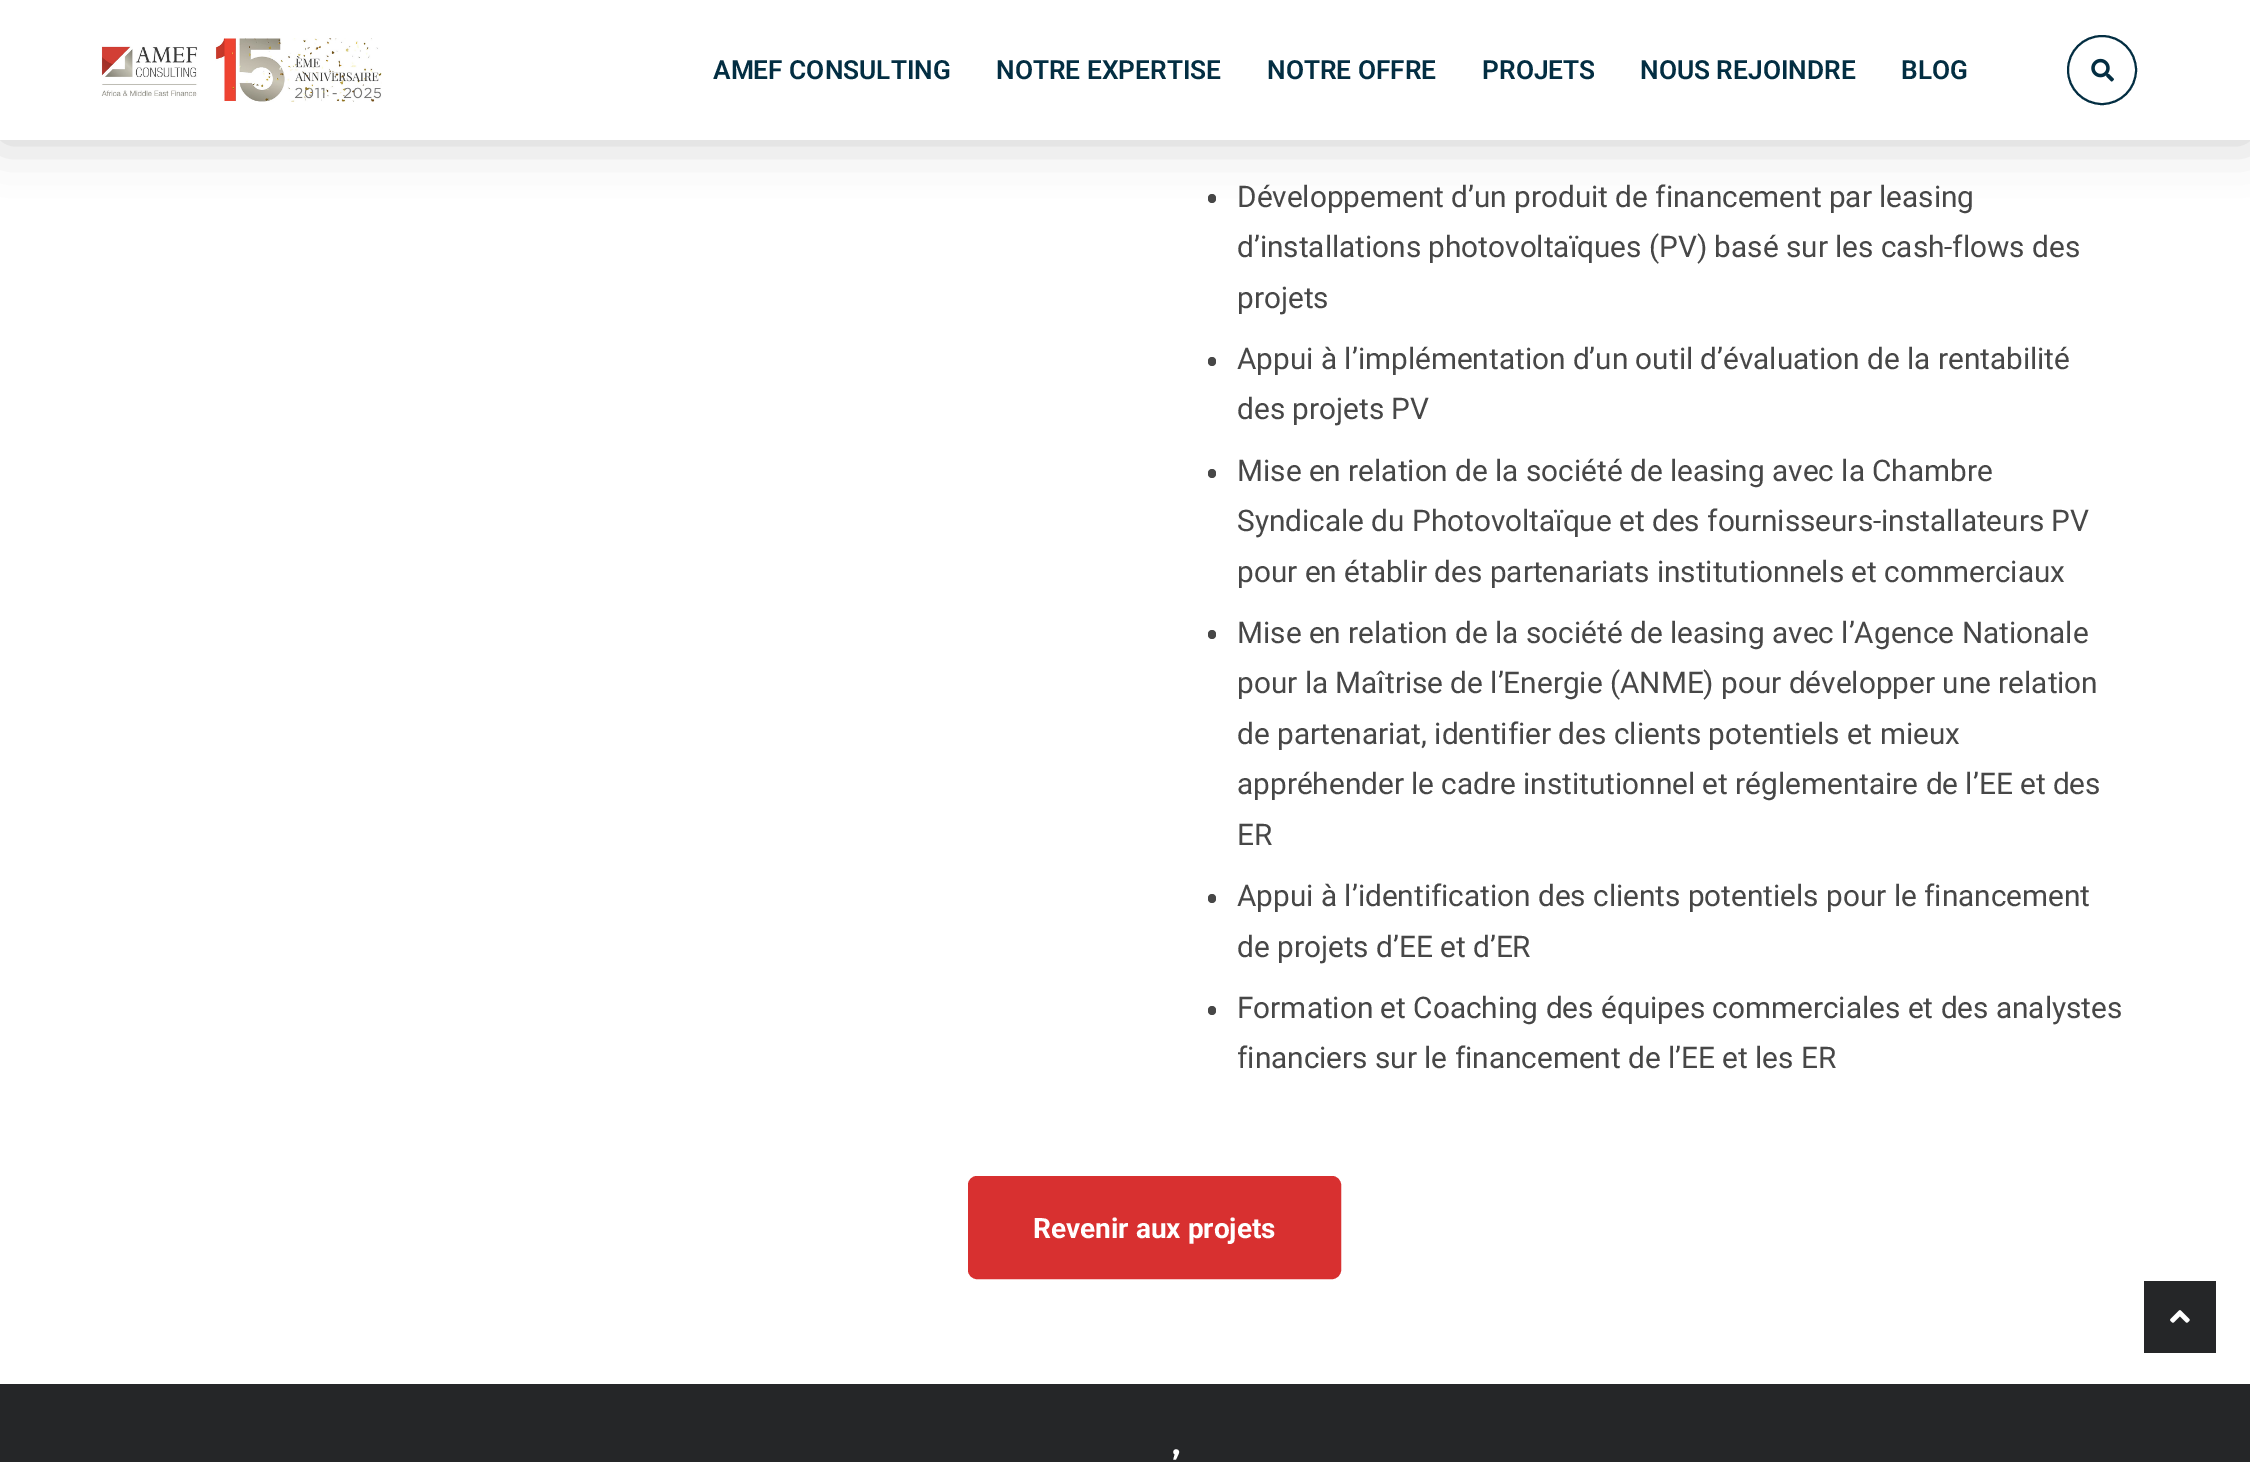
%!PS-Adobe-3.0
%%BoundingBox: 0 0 2250 1462
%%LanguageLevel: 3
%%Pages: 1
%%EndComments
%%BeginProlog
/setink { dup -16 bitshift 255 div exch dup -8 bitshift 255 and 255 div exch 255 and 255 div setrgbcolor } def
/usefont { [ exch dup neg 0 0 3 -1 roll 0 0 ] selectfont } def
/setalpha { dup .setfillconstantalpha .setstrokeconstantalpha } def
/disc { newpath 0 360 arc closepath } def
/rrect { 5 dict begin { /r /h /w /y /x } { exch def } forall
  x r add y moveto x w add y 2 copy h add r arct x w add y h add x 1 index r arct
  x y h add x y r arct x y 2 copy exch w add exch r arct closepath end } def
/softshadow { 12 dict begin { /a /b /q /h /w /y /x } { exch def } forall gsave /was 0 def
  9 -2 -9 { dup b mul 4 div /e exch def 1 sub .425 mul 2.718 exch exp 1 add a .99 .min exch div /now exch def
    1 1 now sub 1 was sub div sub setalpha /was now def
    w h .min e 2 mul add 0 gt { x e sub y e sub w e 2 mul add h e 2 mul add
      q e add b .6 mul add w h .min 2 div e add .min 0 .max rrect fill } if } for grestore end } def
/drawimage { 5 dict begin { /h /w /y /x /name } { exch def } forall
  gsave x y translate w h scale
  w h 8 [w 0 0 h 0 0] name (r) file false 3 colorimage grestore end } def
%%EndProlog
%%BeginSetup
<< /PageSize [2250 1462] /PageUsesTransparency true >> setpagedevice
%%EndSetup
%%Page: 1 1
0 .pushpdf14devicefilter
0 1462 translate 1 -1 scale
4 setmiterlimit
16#FFFFFF setink
0 0 2250 1462 rectfill
16#474747 setink
1208 194 8 9 4 rrect fill
16#000000 setink
0 0 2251 140 0 26 0.2 softshadow
16#FFFFFF setink
0 0 2250 140 rectfill
(img1.raw) 101 38 281 64 drawimage
/Roboto-SemiBold 26.25 usefont
16#032E42 setink
[
    [(AMEF CONSULTING) 713 79]
    [(NOTRE EXPERTISE) 996 79]
    [(NOTRE OFFRE) 1267 79]
    [(PROJETS) 1482 79]
    [(NOUS REJOINDRE) 1640 79]
    [(BLOG) 1901 79]
] { aload pop moveto show } forall
2 setlinewidth
2102 70 34 disc stroke
(img2.raw) 2091 58 23 24 drawimage
/Roboto-Regular 29.75 usefont
16#474747 setink
[
    [(Développement d’un produit de financement par leasing) 1237 207]
    [(d’installations photovoltaïques \(PV\) basé sur les cash-flows des) 1237 257]
    [(projets) 1237 308]
] { aload pop moveto show } forall
1208 357 8 9 4 rrect fill
1237 369 moveto (Appui à l’implémentation d’un outil d’évaluation de la rentabilité) show
1237 419 moveto (des projets PV) show
1208 469 8 9 4 rrect fill
[
    [(Mise en relation de la société de leasing avec la Chambre) 1237 481]
    [(Syndicale du Photovoltaïque et des fournisseurs-installateurs PV) 1237 531]
    [(pour en établir des partenariats institutionnels et commerciaux) 1237 582]
] { aload pop moveto show } forall
1208 630 8 9 4 rrect fill
[
    [(Mise en relation de la société de leasing avec l’Agence Nationale) 1237 643]
    [(pour la Maîtrise de l’Energie \(ANME\) pour développer une relation) 1237 693]
    [(de partenariat, identifier des clients potentiels et mieux) 1237 744]
    [(appréhender le cadre institutionnel et réglementaire de l’EE et des) 1237 794]
    [(ER) 1237 845]
] { aload pop moveto show } forall
1208 894 8 9 4 rrect fill
1237 906 moveto (Appui à l’identification des clients potentiels pour le financement) show
1237 957 moveto (de projets d’EE et d’ER) show
1208 1006 8 9 4 rrect fill
1237 1018 moveto (Formation et Coaching des équipes commerciales et des analystes) show
1237 1068 moveto (financiers sur le financement de l’EE et les ER) show
16#D83030 setink
970 1178 369 99 7 rrect gsave fill grestore
4 setlinewidth
stroke
/Roboto-Bold 28 usefont
16#FFFFFF setink
1033 1238 moveto (Revenir aux projets) show
16#252628 setink
0 1384 2250 78 rectfill
/FiraSans-Bold 35 usefont
16#FFFFFF setink
1172 1476 moveto (’) show
16#252628 setink
2144 1281 72 72 rectfill
(img3.raw) 2170 1310 20 13 drawimage
.poppdf14devicefilter showpage
%%EOF
